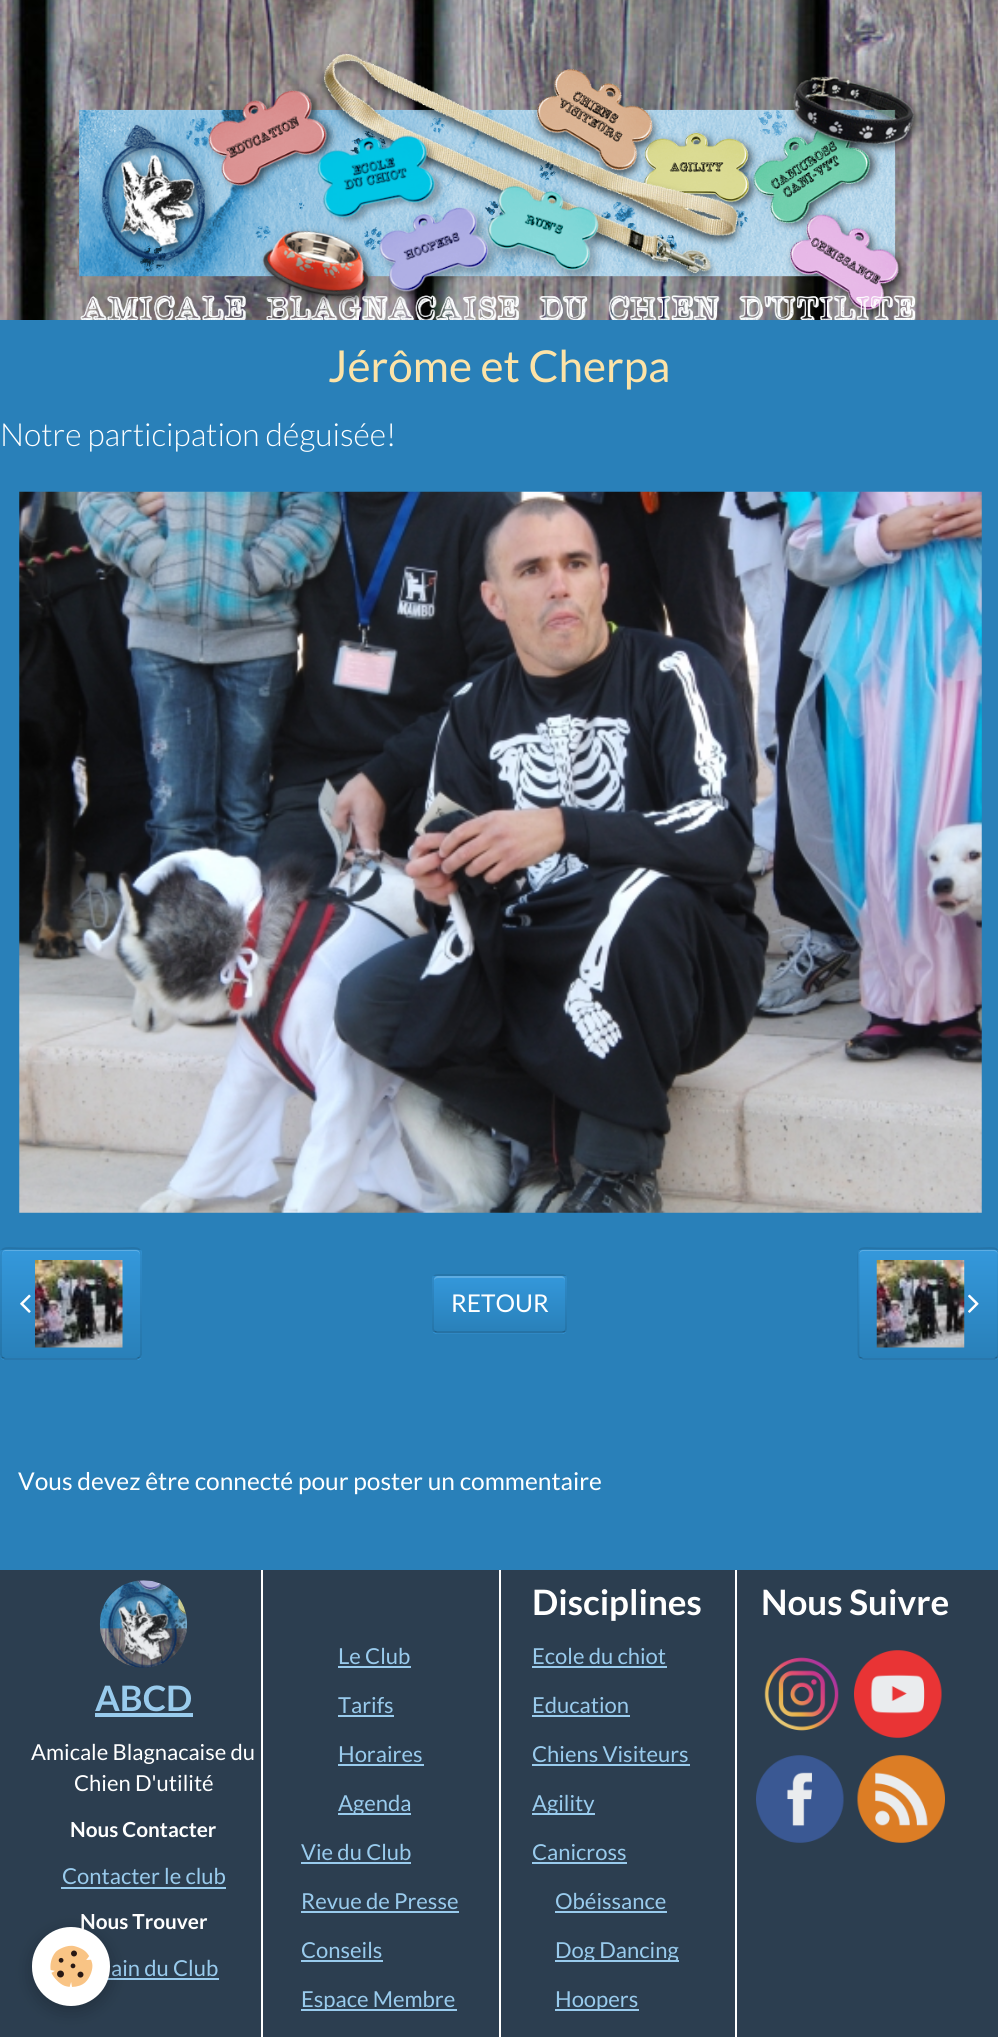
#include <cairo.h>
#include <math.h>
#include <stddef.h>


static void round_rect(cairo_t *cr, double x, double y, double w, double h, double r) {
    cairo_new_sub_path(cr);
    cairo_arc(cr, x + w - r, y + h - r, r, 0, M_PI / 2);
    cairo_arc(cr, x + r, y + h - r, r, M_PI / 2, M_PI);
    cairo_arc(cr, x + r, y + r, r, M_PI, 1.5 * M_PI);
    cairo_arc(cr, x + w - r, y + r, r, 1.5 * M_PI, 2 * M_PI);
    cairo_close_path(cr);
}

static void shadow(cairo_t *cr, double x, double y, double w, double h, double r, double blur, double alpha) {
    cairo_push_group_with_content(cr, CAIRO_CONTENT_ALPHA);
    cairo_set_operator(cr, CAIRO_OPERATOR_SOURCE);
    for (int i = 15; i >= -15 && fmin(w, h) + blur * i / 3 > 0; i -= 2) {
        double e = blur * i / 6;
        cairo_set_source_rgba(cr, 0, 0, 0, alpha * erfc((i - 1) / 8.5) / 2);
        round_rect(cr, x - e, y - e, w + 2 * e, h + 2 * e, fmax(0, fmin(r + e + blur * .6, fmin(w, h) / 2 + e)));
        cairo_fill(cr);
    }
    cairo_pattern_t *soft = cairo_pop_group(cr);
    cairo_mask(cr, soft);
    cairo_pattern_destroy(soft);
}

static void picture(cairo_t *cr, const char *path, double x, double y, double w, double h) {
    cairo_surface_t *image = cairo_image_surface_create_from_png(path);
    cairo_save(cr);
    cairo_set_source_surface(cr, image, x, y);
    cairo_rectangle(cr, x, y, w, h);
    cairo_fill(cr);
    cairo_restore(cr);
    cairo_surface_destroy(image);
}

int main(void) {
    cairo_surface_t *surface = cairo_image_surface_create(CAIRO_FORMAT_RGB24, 998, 2037);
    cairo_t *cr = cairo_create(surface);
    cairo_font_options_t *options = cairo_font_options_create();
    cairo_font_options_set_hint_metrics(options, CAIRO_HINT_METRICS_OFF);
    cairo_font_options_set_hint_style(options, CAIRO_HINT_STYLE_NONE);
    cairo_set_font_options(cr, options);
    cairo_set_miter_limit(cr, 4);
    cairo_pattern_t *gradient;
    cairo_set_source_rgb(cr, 1, 1, 1);
    cairo_paint(cr);
    picture(cr, "img1.png", 0, 0, 998, 320);
    picture(cr, "img2.png", 79, 52, 844, 268);
    cairo_set_source_rgb(cr, 0.173, 0.243, 0.314);
    cairo_rectangle(cr, 0, 1570, 998, 467);
    cairo_fill(cr);
    cairo_set_source_rgb(cr, 1, 1, 1);
    cairo_rectangle(cr, 735, 1563, 2, 474);
    cairo_fill(cr);
    cairo_rectangle(cr, 261, 1563, 2, 474);
    cairo_fill(cr);
    cairo_rectangle(cr, 499, 1563, 2, 474);
    cairo_fill(cr);
    cairo_set_source_rgb(cr, 0.161, 0.502, 0.725);
    cairo_rectangle(cr, 0, 320, 998, 1250);
    cairo_fill(cr);
    cairo_select_font_face(cr, "Lato", CAIRO_FONT_SLANT_NORMAL, CAIRO_FONT_WEIGHT_NORMAL);
    cairo_set_font_size(cr, 44);
    cairo_set_source_rgb(cr, 0.992, 0.89, 0.655);
    cairo_move_to(cr, 328, 382);
    cairo_show_text(cr, "Jérôme et Cherpa");
    cairo_select_font_face(cr, "Lato Light", CAIRO_FONT_SLANT_NORMAL, CAIRO_FONT_WEIGHT_NORMAL);
    cairo_set_font_size(cr, 31.8);
    cairo_set_source_rgb(cr, 1, 1, 1);
    cairo_move_to(cr, 0, 446);
    cairo_show_text(cr, "Notre participation déguisée!");
    picture(cr, "img3.png", 19, 491, 963, 722);
    cairo_save(cr);
    round_rect(cr, 0, 1248, 142, 112, 5);
    cairo_clip(cr);
    gradient = cairo_pattern_create_linear(71, 1250, 71, 1358);
    cairo_pattern_add_color_stop_rgba(gradient, 0, 0.204, 0.596, 0.859, 1);
    cairo_pattern_add_color_stop_rgba(gradient, 1, 0.161, 0.502, 0.725, 1);
    cairo_set_source(cr, gradient);
    cairo_pattern_destroy(gradient);
    cairo_rectangle(cr, 0, 1250, 142, 108);
    cairo_fill(cr);
    gradient = cairo_pattern_create_linear(71, 1358, 71, 1467);
    cairo_pattern_add_color_stop_rgba(gradient, 0, 0.204, 0.596, 0.859, 1);
    cairo_pattern_add_color_stop_rgba(gradient, 1, 0.161, 0.502, 0.725, 1);
    cairo_set_source(cr, gradient);
    cairo_pattern_destroy(gradient);
    cairo_rectangle(cr, 0, 1358, 142, 2);
    cairo_fill(cr);
    cairo_restore(cr);
    cairo_set_source_rgb(cr, 0.365, 0.678, 0.886);
    cairo_new_path(cr);
    cairo_move_to(cr, 5, 1251);
    cairo_line_to(cr, 136, 1251);
    cairo_curve_to(cr, 138, 1251, 140, 1253, 140, 1255);
    cairo_line_to(cr, 140, 1254);
    cairo_curve_to(cr, 140, 1252, 138, 1250, 136, 1250);
    cairo_line_to(cr, 6, 1250);
    cairo_curve_to(cr, 4, 1250, 2, 1252, 2, 1254);
    cairo_line_to(cr, 2, 1255);
    cairo_curve_to(cr, 2, 1253, 3, 1251, 5, 1251);
    cairo_close_path(cr);
    cairo_fill(cr);
    cairo_new_path(cr);
    cairo_move_to(cr, 139.5, 1357.5);
    cairo_line_to(cr, 136.5, 1359);
    cairo_line_to(cr, 5, 1359);
    cairo_line_to(cr, 2, 1357.5);
    cairo_set_source_rgba(cr, 0, 0, 0, 0.25);
    cairo_set_line_width(cr, 1.8);
    cairo_stroke(cr);
    cairo_new_path(cr);
    cairo_move_to(cr, 2, 1357.5);
    cairo_line_to(cr, 1, 1354.5);
    cairo_line_to(cr, 1, 1270);
    cairo_curve_to(cr, 1, 1243, -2, 1248.5, 27, 1248.5);
    cairo_line_to(cr, 114.5, 1248.5);
    cairo_curve_to(cr, 144, 1248.5, 141, 1243, 141, 1270);
    cairo_line_to(cr, 141, 1354.5);
    cairo_line_to(cr, 139.5, 1357.5);
    cairo_set_source_rgba(cr, 0, 0, 0, 0.1);
    cairo_stroke(cr);
    picture(cr, "img4.png", 20, 1294, 11, 19);
    picture(cr, "img5.png", 35, 1260, 88, 88);
    cairo_save(cr);
    round_rect(cr, 432, 1274, 135, 60, 5);
    cairo_clip(cr);
    gradient = cairo_pattern_create_linear(500, 1276, 500, 1332);
    cairo_pattern_add_color_stop_rgba(gradient, 0, 0.204, 0.596, 0.859, 1);
    cairo_pattern_add_color_stop_rgba(gradient, 1, 0.161, 0.502, 0.725, 1);
    cairo_set_source(cr, gradient);
    cairo_pattern_destroy(gradient);
    cairo_rectangle(cr, 432, 1276, 135, 56);
    cairo_fill(cr);
    gradient = cairo_pattern_create_linear(500, 1332, 500, 1388);
    cairo_pattern_add_color_stop_rgba(gradient, 0, 0.204, 0.596, 0.859, 1);
    cairo_pattern_add_color_stop_rgba(gradient, 1, 0.161, 0.502, 0.725, 1);
    cairo_set_source(cr, gradient);
    cairo_pattern_destroy(gradient);
    cairo_rectangle(cr, 432, 1332, 135, 2);
    cairo_fill(cr);
    cairo_restore(cr);
    cairo_set_source_rgb(cr, 0.365, 0.675, 0.886);
    cairo_new_path(cr);
    cairo_move_to(cr, 438, 1278);
    cairo_line_to(cr, 562, 1278);
    cairo_curve_to(cr, 564, 1278, 565, 1279, 565, 1281);
    cairo_line_to(cr, 565, 1280);
    cairo_curve_to(cr, 565, 1278, 563, 1276, 561, 1276);
    cairo_line_to(cr, 438, 1276);
    cairo_curve_to(cr, 436, 1276, 434, 1278, 434, 1280);
    cairo_line_to(cr, 434, 1281);
    cairo_curve_to(cr, 434, 1279, 436, 1278, 438, 1278);
    cairo_close_path(cr);
    cairo_fill(cr);
    cairo_new_path(cr);
    cairo_move_to(cr, 565, 1331.5);
    cairo_line_to(cr, 562, 1332.5);
    cairo_line_to(cr, 437, 1332.5);
    cairo_line_to(cr, 434.5, 1331.5);
    cairo_set_source_rgba(cr, 0, 0, 0, 0.25);
    cairo_stroke(cr);
    cairo_new_path(cr);
    cairo_move_to(cr, 434.5, 1331.5);
    cairo_curve_to(cr, 433.5, 1330.5, 433, 1329.5, 433, 1328);
    cairo_line_to(cr, 433, 1279);
    cairo_curve_to(cr, 433, 1278, 433.5, 1277, 434.5, 1276);
    cairo_curve_to(cr, 435, 1275.5, 436.5, 1275, 437.5, 1275);
    cairo_line_to(cr, 562, 1275);
    cairo_curve_to(cr, 563, 1275, 564, 1275.5, 565, 1276);
    cairo_curve_to(cr, 565.5, 1277, 566, 1278, 566, 1279);
    cairo_line_to(cr, 566, 1328);
    cairo_curve_to(cr, 566, 1329.5, 565.5, 1330.5, 565, 1331.5);
    cairo_set_source_rgba(cr, 0, 0, 0, 0.1);
    cairo_stroke(cr);
    cairo_select_font_face(cr, "Lato", CAIRO_FONT_SLANT_NORMAL, CAIRO_FONT_WEIGHT_NORMAL);
    cairo_set_font_size(cr, 24.5);
    cairo_set_source_rgb(cr, 1, 1, 1);
    cairo_move_to(cr, 451, 1312);
    cairo_show_text(cr, "RETOUR");
    cairo_save(cr);
    round_rect(cr, 858, 1248, 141, 112, 5);
    cairo_clip(cr);
    gradient = cairo_pattern_create_linear(928, 1250, 928, 1358);
    cairo_pattern_add_color_stop_rgba(gradient, 0, 0.204, 0.596, 0.859, 1);
    cairo_pattern_add_color_stop_rgba(gradient, 1, 0.161, 0.502, 0.725, 1);
    cairo_set_source(cr, gradient);
    cairo_pattern_destroy(gradient);
    cairo_rectangle(cr, 858, 1250, 140, 108);
    cairo_fill(cr);
    gradient = cairo_pattern_create_linear(928, 1358, 928, 1467);
    cairo_pattern_add_color_stop_rgba(gradient, 0, 0.204, 0.596, 0.859, 1);
    cairo_pattern_add_color_stop_rgba(gradient, 1, 0.161, 0.502, 0.725, 1);
    cairo_set_source(cr, gradient);
    cairo_pattern_destroy(gradient);
    cairo_rectangle(cr, 858, 1358, 140, 2);
    cairo_fill(cr);
    cairo_restore(cr);
    cairo_set_source_rgb(cr, 0.365, 0.678, 0.886);
    cairo_new_path(cr);
    cairo_move_to(cr, 863, 1251);
    cairo_line_to(cr, 994, 1251);
    cairo_curve_to(cr, 996, 1251, 998, 1253, 998, 1255);
    cairo_line_to(cr, 998, 1254);
    cairo_curve_to(cr, 998, 1252, 996, 1250, 994, 1250);
    cairo_line_to(cr, 863, 1250);
    cairo_curve_to(cr, 861, 1250, 859, 1252, 859, 1254);
    cairo_line_to(cr, 859, 1255);
    cairo_curve_to(cr, 859, 1253, 861, 1251, 863, 1251);
    cairo_close_path(cr);
    cairo_fill(cr);
    cairo_new_path(cr);
    cairo_move_to(cr, 997, 1357.5);
    cairo_line_to(cr, 994.5, 1359);
    cairo_line_to(cr, 884.5, 1359);
    cairo_line_to(cr, 863, 1359);
    cairo_line_to(cr, 859.5, 1357.5);
    cairo_set_source_rgba(cr, 0, 0, 0, 0.25);
    cairo_stroke(cr);
    cairo_new_path(cr);
    cairo_move_to(cr, 859.5, 1357.5);
    cairo_line_to(cr, 858.5, 1354.5);
    cairo_line_to(cr, 858.5, 1270);
    cairo_curve_to(cr, 858.5, 1243, 855.5, 1248.5, 884.5, 1248.5);
    cairo_line_to(cr, 972, 1248.5);
    cairo_curve_to(cr, 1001.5, 1248.5, 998.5, 1243, 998.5, 1270);
    cairo_line_to(cr, 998.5, 1354.5);
    cairo_line_to(cr, 997, 1357.5);
    cairo_set_source_rgba(cr, 0, 0, 0, 0.1);
    cairo_stroke(cr);
    picture(cr, "img6.png", 876, 1260, 89, 88);
    picture(cr, "img7.png", 968, 1294, 11, 19);
    cairo_set_source_rgb(cr, 1, 1, 1);
    cairo_move_to(cr, 18, 1490);
    cairo_show_text(cr, "Vous devez être connecté pour poster un commentaire");
    cairo_select_font_face(cr, "Lato", CAIRO_FONT_SLANT_NORMAL, CAIRO_FONT_WEIGHT_BOLD);
    cairo_set_font_size(cr, 35);
    cairo_move_to(cr, 532, 1615);
    cairo_show_text(cr, "Disciplines");
    cairo_select_font_face(cr, "Lato", CAIRO_FONT_SLANT_NORMAL, CAIRO_FONT_WEIGHT_NORMAL);
    cairo_set_font_size(cr, 22);
    cairo_set_source_rgb(cr, 0.6, 0.796, 0.929);
    cairo_move_to(cr, 532, 1664);
    cairo_show_text(cr, "Ecole du chiot");
    cairo_rectangle(cr, 532, 1666, 135, 2);
    cairo_fill(cr);
    cairo_move_to(cr, 532, 1713);
    cairo_show_text(cr, "Education");
    cairo_rectangle(cr, 532, 1715, 98, 2);
    cairo_fill(cr);
    cairo_move_to(cr, 532, 1762);
    cairo_show_text(cr, "Chiens Visiteurs");
    cairo_rectangle(cr, 532, 1764, 158, 2);
    cairo_fill(cr);
    cairo_rectangle(cr, 532, 1813, 63, 2);
    cairo_fill(cr);
    cairo_move_to(cr, 532, 1811);
    cairo_show_text(cr, "Agility");
    cairo_move_to(cr, 532, 1860);
    cairo_show_text(cr, "Canicross");
    cairo_rectangle(cr, 532, 1862, 95, 2);
    cairo_fill(cr);
    cairo_move_to(cr, 555, 1909);
    cairo_show_text(cr, "Obéissance");
    cairo_rectangle(cr, 555, 1911, 112, 2);
    cairo_fill(cr);
    cairo_rectangle(cr, 555, 1960, 124, 2);
    cairo_fill(cr);
    cairo_move_to(cr, 555, 1958);
    cairo_show_text(cr, "Dog Dancing");
    cairo_rectangle(cr, 555, 2009, 84, 2);
    cairo_fill(cr);
    cairo_move_to(cr, 555, 2007);
    cairo_show_text(cr, "Hoopers");
    cairo_select_font_face(cr, "Lato", CAIRO_FONT_SLANT_NORMAL, CAIRO_FONT_WEIGHT_BOLD);
    cairo_set_font_size(cr, 35);
    cairo_set_source_rgb(cr, 1, 1, 1);
    cairo_move_to(cr, 761, 1615);
    cairo_show_text(cr, "Nous Suivre");
    picture(cr, "img8.png", 764, 1657, 75, 74);
    picture(cr, "img9.png", 854, 1650, 88, 88);
    picture(cr, "img10.png", 756, 1755, 88, 88);
    picture(cr, "img11.png", 857, 1755, 88, 88);
    picture(cr, "img12.png", 99, 1580, 89, 88);
    cairo_set_source_rgb(cr, 0.6, 0.796, 0.929);
    cairo_move_to(cr, 95, 1711);
    cairo_show_text(cr, "ABCD");
    cairo_rectangle(cr, 95, 1713, 98, 4);
    cairo_fill(cr);
    cairo_select_font_face(cr, "Lato", CAIRO_FONT_SLANT_NORMAL, CAIRO_FONT_WEIGHT_NORMAL);
    cairo_set_font_size(cr, 22);
    cairo_set_source_rgb(cr, 1, 1, 1);
    cairo_move_to(cr, 31, 1760);
    cairo_show_text(cr, "Amicale Blagnacaise du");
    cairo_move_to(cr, 74, 1791);
    cairo_show_text(cr, "Chien D'utilité");
    cairo_select_font_face(cr, "Lato", CAIRO_FONT_SLANT_NORMAL, CAIRO_FONT_WEIGHT_BOLD);
    cairo_set_font_size(cr, 20.75);
    cairo_move_to(cr, 70, 1837);
    cairo_show_text(cr, "Nous Contacter");
    cairo_select_font_face(cr, "Lato", CAIRO_FONT_SLANT_NORMAL, CAIRO_FONT_WEIGHT_NORMAL);
    cairo_set_font_size(cr, 22);
    cairo_set_source_rgb(cr, 0.6, 0.796, 0.929);
    cairo_move_to(cr, 62, 1884);
    cairo_show_text(cr, "Contacter le club");
    cairo_rectangle(cr, 61, 1887, 165, 2);
    cairo_fill(cr);
    cairo_select_font_face(cr, "Lato", CAIRO_FONT_SLANT_NORMAL, CAIRO_FONT_WEIGHT_BOLD);
    cairo_set_font_size(cr, 20.75);
    cairo_set_source_rgb(cr, 1, 1, 1);
    cairo_move_to(cr, 80, 1929);
    cairo_show_text(cr, "Nous Trouver");
    cairo_select_font_face(cr, "Lato", CAIRO_FONT_SLANT_NORMAL, CAIRO_FONT_WEIGHT_NORMAL);
    cairo_set_font_size(cr, 22);
    cairo_set_source_rgb(cr, 0.6, 0.796, 0.929);
    cairo_move_to(cr, 111, 1976);
    cairo_show_text(cr, "ain du Club");
    cairo_rectangle(cr, 107, 1978, 112, 2);
    cairo_fill(cr);
    cairo_move_to(cr, 338, 1664);
    cairo_show_text(cr, "Le Club");
    cairo_rectangle(cr, 338, 1666, 73, 2);
    cairo_fill(cr);
    cairo_move_to(cr, 338, 1713);
    cairo_show_text(cr, "Tarifs");
    cairo_rectangle(cr, 338, 1715, 56, 2);
    cairo_fill(cr);
    cairo_move_to(cr, 338, 1762);
    cairo_show_text(cr, "Horaires");
    cairo_rectangle(cr, 338, 1764, 86, 2);
    cairo_fill(cr);
    cairo_rectangle(cr, 338, 1813, 73, 2);
    cairo_fill(cr);
    cairo_move_to(cr, 338, 1811);
    cairo_show_text(cr, "Agenda");
    cairo_move_to(cr, 301, 1860);
    cairo_show_text(cr, "Vie du Club");
    cairo_rectangle(cr, 301, 1862, 110, 2);
    cairo_fill(cr);
    cairo_move_to(cr, 301, 1909);
    cairo_show_text(cr, "Revue de Presse");
    cairo_rectangle(cr, 301, 1911, 158, 2);
    cairo_fill(cr);
    cairo_move_to(cr, 301, 1958);
    cairo_show_text(cr, "Conseils");
    cairo_rectangle(cr, 301, 1960, 82, 2);
    cairo_fill(cr);
    cairo_rectangle(cr, 301, 2009, 156, 2);
    cairo_fill(cr);
    cairo_move_to(cr, 301, 2007);
    cairo_show_text(cr, "Espace Membre");
    cairo_set_source_rgb(cr, 0, 0, 0);
    shadow(cr, 32, 1932, 78, 79, 39, 9, 0.24);
    cairo_set_source_rgb(cr, 1, 1, 1);
    round_rect(cr, 32, 1927, 78, 79, 39);
    cairo_fill(cr);
    picture(cr, "img13.png", 50, 1945, 43, 42);
    cairo_surface_write_to_png(surface, "page.png");
    cairo_font_options_destroy(options);
    cairo_destroy(cr);
    cairo_surface_destroy(surface);
    return 0;
}
